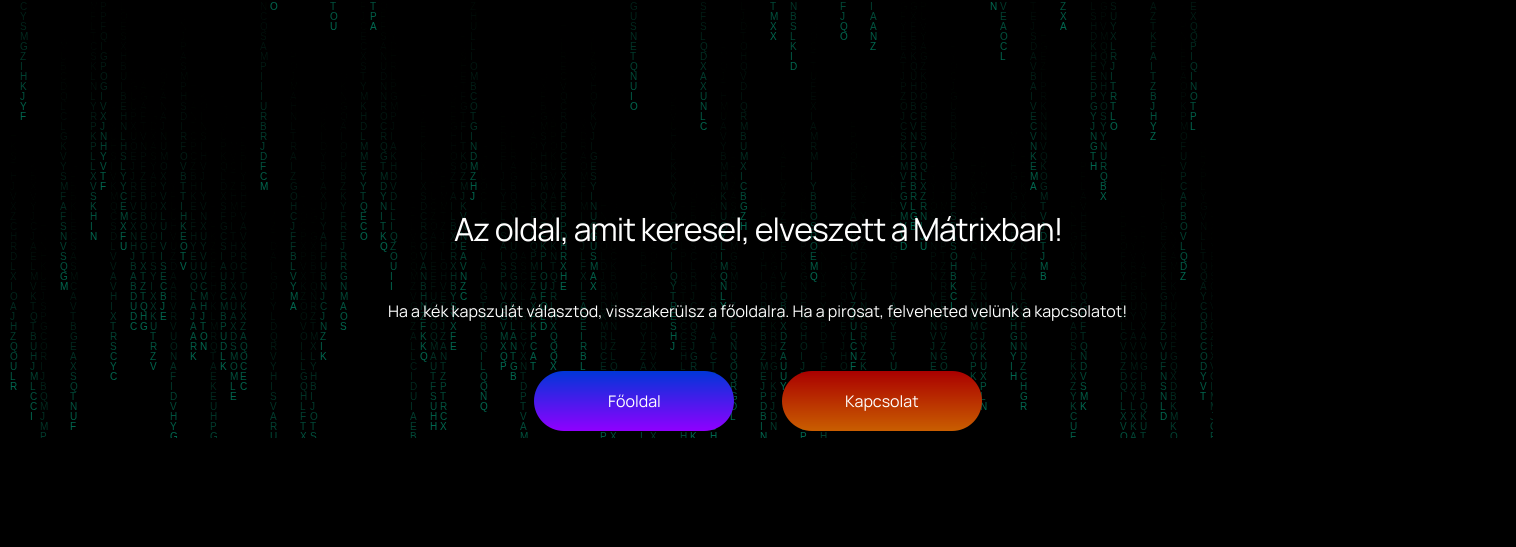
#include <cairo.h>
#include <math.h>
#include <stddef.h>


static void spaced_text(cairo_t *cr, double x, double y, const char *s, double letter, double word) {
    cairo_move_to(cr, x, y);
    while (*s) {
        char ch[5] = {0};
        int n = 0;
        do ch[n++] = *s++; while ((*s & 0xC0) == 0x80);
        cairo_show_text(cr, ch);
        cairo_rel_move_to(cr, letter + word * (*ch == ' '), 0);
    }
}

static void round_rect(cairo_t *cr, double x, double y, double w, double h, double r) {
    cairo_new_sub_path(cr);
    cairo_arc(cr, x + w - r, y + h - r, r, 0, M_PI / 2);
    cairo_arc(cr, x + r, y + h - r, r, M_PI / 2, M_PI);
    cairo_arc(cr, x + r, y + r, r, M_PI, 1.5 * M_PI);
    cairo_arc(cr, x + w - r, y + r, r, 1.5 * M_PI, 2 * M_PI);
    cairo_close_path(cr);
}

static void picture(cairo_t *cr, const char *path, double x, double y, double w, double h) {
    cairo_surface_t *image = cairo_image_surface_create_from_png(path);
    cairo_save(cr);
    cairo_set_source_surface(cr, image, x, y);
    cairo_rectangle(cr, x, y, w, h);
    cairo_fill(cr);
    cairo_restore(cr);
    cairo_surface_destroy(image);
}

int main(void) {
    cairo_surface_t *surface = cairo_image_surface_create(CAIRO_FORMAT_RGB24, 1516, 547);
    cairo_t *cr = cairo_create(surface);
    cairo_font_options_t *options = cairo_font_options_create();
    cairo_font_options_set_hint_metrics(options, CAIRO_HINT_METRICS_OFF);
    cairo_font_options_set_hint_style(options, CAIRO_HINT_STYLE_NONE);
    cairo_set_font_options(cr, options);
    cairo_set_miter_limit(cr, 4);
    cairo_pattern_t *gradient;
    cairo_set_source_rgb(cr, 0, 0, 0);
    cairo_paint(cr);
    picture(cr, "img1.png", 10, 2, 1203, 436);
    cairo_select_font_face(cr, "Manrope", CAIRO_FONT_SLANT_NORMAL, CAIRO_FONT_WEIGHT_NORMAL);
    cairo_set_font_size(cr, 32);
    cairo_set_source_rgb(cr, 1, 1, 1);
    spaced_text(cr, 454, 241, "Az oldal, amit keresel, elveszett a Mátrixban!", -0.95, 0);
    cairo_set_font_size(cr, 16);
    cairo_move_to(cr, 388, 317);
    cairo_show_text(cr, "Ha a kék kapszulát választod, visszakerülsz a főoldalra. Ha a pirosat, felveheted velünk a kapcsolatot!");
    gradient = cairo_pattern_create_linear(634, 371, 634, 431);
    cairo_pattern_add_color_stop_rgba(gradient, 0, 0, 0.212, 0.847, 1);
    cairo_pattern_add_color_stop_rgba(gradient, 1, 0.565, 0, 1, 1);
    cairo_set_source(cr, gradient);
    cairo_pattern_destroy(gradient);
    round_rect(cr, 534, 371, 200, 60, 30);
    cairo_fill(cr);
    cairo_set_source_rgb(cr, 1, 1, 1);
    cairo_move_to(cr, 608, 407);
    cairo_show_text(cr, "Főoldal");
    gradient = cairo_pattern_create_linear(882, 371, 882, 431);
    cairo_pattern_add_color_stop_rgba(gradient, 0, 0.667, 0, 0, 1);
    cairo_pattern_add_color_stop_rgba(gradient, 1, 0.788, 0.369, 0, 1);
    cairo_set_source(cr, gradient);
    cairo_pattern_destroy(gradient);
    round_rect(cr, 782, 371, 200, 60, 30);
    cairo_fill(cr);
    cairo_set_source_rgb(cr, 1, 1, 1);
    cairo_move_to(cr, 845, 407);
    cairo_show_text(cr, "Kapcsolat");
    cairo_surface_write_to_png(surface, "page.png");
    cairo_font_options_destroy(options);
    cairo_destroy(cr);
    cairo_surface_destroy(surface);
    return 0;
}
